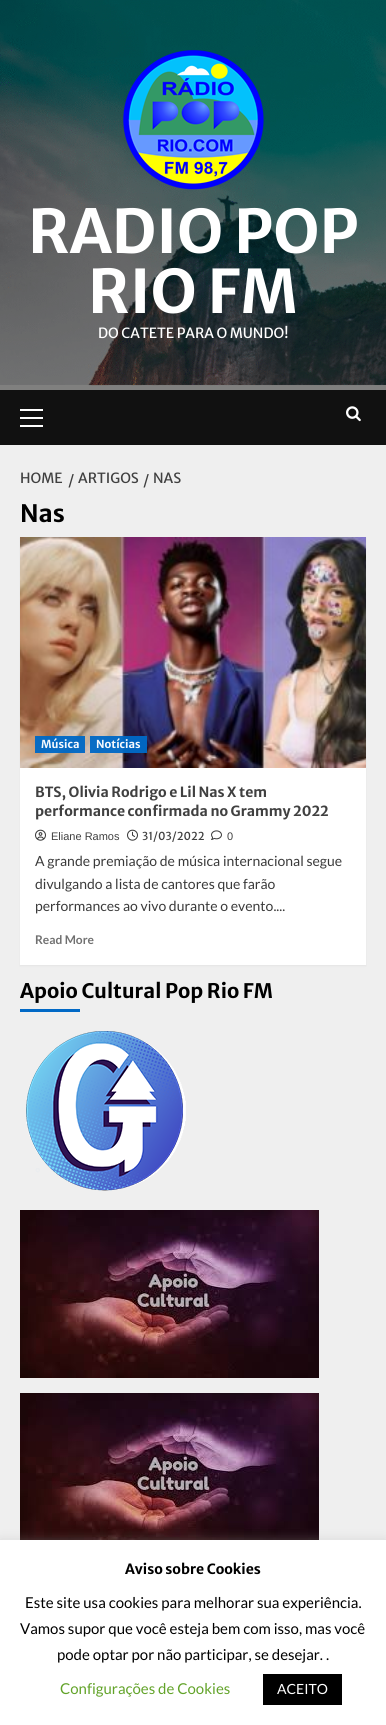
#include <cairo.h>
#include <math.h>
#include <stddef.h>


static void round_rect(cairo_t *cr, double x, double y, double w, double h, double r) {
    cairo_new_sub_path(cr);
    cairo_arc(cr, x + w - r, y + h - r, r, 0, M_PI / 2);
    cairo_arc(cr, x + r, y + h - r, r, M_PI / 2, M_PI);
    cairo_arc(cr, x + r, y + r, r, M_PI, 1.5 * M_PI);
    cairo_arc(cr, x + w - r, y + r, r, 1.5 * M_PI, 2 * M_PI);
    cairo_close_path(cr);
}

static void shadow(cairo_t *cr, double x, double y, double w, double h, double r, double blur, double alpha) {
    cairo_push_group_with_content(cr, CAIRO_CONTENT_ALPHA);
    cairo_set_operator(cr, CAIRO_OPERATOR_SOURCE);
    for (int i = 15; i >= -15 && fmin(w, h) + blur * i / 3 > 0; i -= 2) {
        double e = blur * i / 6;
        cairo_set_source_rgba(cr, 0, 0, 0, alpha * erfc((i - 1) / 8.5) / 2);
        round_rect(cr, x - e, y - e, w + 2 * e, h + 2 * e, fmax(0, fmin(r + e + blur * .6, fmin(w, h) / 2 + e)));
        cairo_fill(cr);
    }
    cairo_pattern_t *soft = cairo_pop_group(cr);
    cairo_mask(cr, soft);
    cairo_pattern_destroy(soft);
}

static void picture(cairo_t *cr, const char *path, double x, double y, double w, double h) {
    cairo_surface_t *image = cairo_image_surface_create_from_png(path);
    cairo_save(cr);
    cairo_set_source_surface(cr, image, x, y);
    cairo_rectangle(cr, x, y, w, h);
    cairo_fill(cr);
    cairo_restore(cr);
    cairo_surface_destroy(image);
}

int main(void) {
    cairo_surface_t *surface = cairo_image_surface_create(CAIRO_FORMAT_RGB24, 386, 1725);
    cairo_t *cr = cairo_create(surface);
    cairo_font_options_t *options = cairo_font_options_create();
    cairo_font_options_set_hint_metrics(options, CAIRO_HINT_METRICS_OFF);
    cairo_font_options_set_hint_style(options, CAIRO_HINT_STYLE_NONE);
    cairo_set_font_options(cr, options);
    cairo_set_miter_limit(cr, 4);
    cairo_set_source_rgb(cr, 0.937, 0.937, 0.937);
    cairo_paint(cr);
    picture(cr, "img1.png", 0, 0, 386, 390);
    picture(cr, "img2.png", 123, 50, 141, 140);
    cairo_select_font_face(cr, "Merriweather Sans", CAIRO_FONT_SLANT_NORMAL, CAIRO_FONT_WEIGHT_BOLD);
    cairo_set_font_size(cr, 60);
    cairo_set_source_rgb(cr, 1, 1, 1);
    cairo_move_to(cr, 28, 253);
    cairo_show_text(cr, "RADIO POP");
    cairo_move_to(cr, 88, 313);
    cairo_show_text(cr, "RIO FM");
    cairo_select_font_face(cr, "Merriweather Sans", CAIRO_FONT_SLANT_NORMAL, CAIRO_FONT_WEIGHT_NORMAL);
    cairo_set_font_size(cr, 14);
    cairo_move_to(cr, 98, 338);
    cairo_show_text(cr, "DO CATETE PARA O MUNDO!");
    cairo_set_source_rgb(cr, 0.067, 0.067, 0.067);
    cairo_rectangle(cr, 0, 390, 386, 55);
    cairo_fill(cr);
    cairo_set_source_rgb(cr, 1, 1, 1);
    cairo_rectangle(cr, 20, 417, 23, 2);
    cairo_fill(cr);
    cairo_rectangle(cr, 20, 409, 23, 2);
    cairo_fill(cr);
    cairo_rectangle(cr, 20, 425, 23, 2);
    cairo_fill(cr);
    picture(cr, "img3.png", 346, 406, 15, 16);
    cairo_set_source_rgb(cr, 0.251, 0.251, 0.251);
    cairo_move_to(cr, 20, 483);
    cairo_show_text(cr, "HOME");
    cairo_move_to(cr, 68, 485);
    cairo_show_text(cr, "/");
    cairo_move_to(cr, 78, 483);
    cairo_show_text(cr, "ARTIGOS");
    cairo_move_to(cr, 143, 485);
    cairo_show_text(cr, "/");
    cairo_move_to(cr, 153, 483);
    cairo_show_text(cr, "NAS");
    cairo_select_font_face(cr, "Merriweather Sans", CAIRO_FONT_SLANT_NORMAL, CAIRO_FONT_WEIGHT_BOLD);
    cairo_set_font_size(cr, 24);
    cairo_set_source_rgb(cr, 0, 0, 0);
    cairo_move_to(cr, 20, 522);
    cairo_show_text(cr, "Nas");
    cairo_set_source_rgb(cr, 0, 0, 0);
    shadow(cr, 20, 538, 346, 428, 0, 1, 0.05);
    cairo_set_source_rgb(cr, 1, 1, 1);
    cairo_rectangle(cr, 20, 768, 346, 197);
    cairo_fill(cr);
    picture(cr, "img4.png", 20, 537, 346, 231);
    cairo_set_source_rgba(cr, 0.004, 0.412, 0.776, 0.96);
    cairo_rectangle(cr, 35, 736, 50, 17);
    cairo_fill(cr);
    cairo_set_font_size(cr, 11);
    cairo_set_source_rgb(cr, 0.961, 0.976, 0.992);
    cairo_move_to(cr, 41, 748);
    cairo_show_text(cr, "Música");
    cairo_set_source_rgba(cr, 0.004, 0.412, 0.776, 0.96);
    cairo_rectangle(cr, 90, 736, 57, 17);
    cairo_fill(cr);
    cairo_set_source_rgb(cr, 0.961, 0.976, 0.992);
    cairo_move_to(cr, 96, 748);
    cairo_show_text(cr, "Notícias");
    cairo_set_font_size(cr, 14);
    cairo_set_source_rgb(cr, 0.251, 0.251, 0.251);
    cairo_move_to(cr, 35, 797);
    cairo_show_text(cr, "BTS, Olivia Rodrigo e Lil Nas X tem");
    cairo_move_to(cr, 35, 816);
    cairo_show_text(cr, "performance confirmada no Grammy 2022");
    picture(cr, "img5.png", 35, 829, 11, 12);
    cairo_select_font_face(cr, "Liberation Sans", CAIRO_FONT_SLANT_NORMAL, CAIRO_FONT_WEIGHT_NORMAL);
    cairo_set_font_size(cr, 11);
    cairo_move_to(cr, 51, 840);
    cairo_show_text(cr, "Eliane Ramos");
    picture(cr, "img6.png", 127, 829, 11, 12);
    cairo_select_font_face(cr, "Merriweather Sans", CAIRO_FONT_SLANT_NORMAL, CAIRO_FONT_WEIGHT_NORMAL);
    cairo_move_to(cr, 142, 840);
    cairo_show_text(cr, "31/03/2022");
    picture(cr, "img7.png", 211, 830, 11, 10);
    cairo_select_font_face(cr, "Liberation Sans", CAIRO_FONT_SLANT_NORMAL, CAIRO_FONT_WEIGHT_NORMAL);
    cairo_move_to(cr, 227, 840);
    cairo_show_text(cr, "0");
    cairo_select_font_face(cr, "Lato", CAIRO_FONT_SLANT_NORMAL, CAIRO_FONT_WEIGHT_NORMAL);
    cairo_set_font_size(cr, 14);
    cairo_set_source_rgb(cr, 0.227, 0.227, 0.227);
    cairo_move_to(cr, 35, 866);
    cairo_show_text(cr, "A grande premiação de música internacional segue");
    cairo_move_to(cr, 35, 889);
    cairo_show_text(cr, "divulgando a lista de cantores que farão");
    cairo_move_to(cr, 35, 911);
    cairo_show_text(cr, "performances ao vivo durante o evento....");
    cairo_select_font_face(cr, "Lato", CAIRO_FONT_SLANT_NORMAL, CAIRO_FONT_WEIGHT_BOLD);
    cairo_set_font_size(cr, 12);
    cairo_set_source_rgb(cr, 0.439, 0.439, 0.439);
    cairo_move_to(cr, 35, 944);
    cairo_show_text(cr, "Read More");
    cairo_select_font_face(cr, "Merriweather Sans", CAIRO_FONT_SLANT_NORMAL, CAIRO_FONT_WEIGHT_BOLD);
    cairo_set_font_size(cr, 20);
    cairo_set_source_rgb(cr, 0, 0, 0);
    cairo_move_to(cr, 20, 998);
    cairo_show_text(cr, "Apoio Cultural Pop Rio FM");
    cairo_set_source_rgb(cr, 0.004, 0.412, 0.776);
    cairo_rectangle(cr, 20, 1009, 60, 3);
    cairo_fill(cr);
    picture(cr, "img8.png", 26, 1031, 160, 160);
    picture(cr, "img9.png", 20, 1210, 299, 168);
    picture(cr, "img10.png", 20, 1393, 299, 147);
    cairo_set_source_rgb(cr, 0.675, 0.671, 0.671);
    shadow(cr, 0, 1539, 386, 185, 0, 5, 0.3);
    cairo_set_source_rgb(cr, 1, 1, 1);
    cairo_rectangle(cr, 0, 1540, 386, 185);
    cairo_fill(cr);
    cairo_set_font_size(cr, 14);
    cairo_set_source_rgb(cr, 0, 0, 0);
    cairo_move_to(cr, 125, 1574);
    cairo_show_text(cr, "Aviso sobre Cookies");
    cairo_select_font_face(cr, "Lato", CAIRO_FONT_SLANT_NORMAL, CAIRO_FONT_WEIGHT_NORMAL);
    cairo_set_font_size(cr, 15);
    cairo_move_to(cr, 25, 1608);
    cairo_show_text(cr, "Este site usa cookies para melhorar sua experiência.");
    cairo_move_to(cr, 20, 1634);
    cairo_show_text(cr, "Vamos supor que você esteja bem com isso, mas você");
    cairo_move_to(cr, 57, 1660);
    cairo_show_text(cr, "pode optar por não participar, se desejar. .");
    cairo_set_source_rgb(cr, 0.384, 0.639, 0.161);
    cairo_move_to(cr, 60, 1694);
    cairo_show_text(cr, "Configurações de Cookies");
    cairo_set_source_rgb(cr, 0, 0, 0);
    cairo_rectangle(cr, 263, 1674, 79, 31);
    cairo_fill(cr);
    cairo_set_font_size(cr, 14);
    cairo_set_source_rgb(cr, 1, 1, 1);
    cairo_move_to(cr, 277, 1694);
    cairo_show_text(cr, "ACEITO");
    cairo_surface_write_to_png(surface, "page.png");
    cairo_font_options_destroy(options);
    cairo_destroy(cr);
    cairo_surface_destroy(surface);
    return 0;
}
